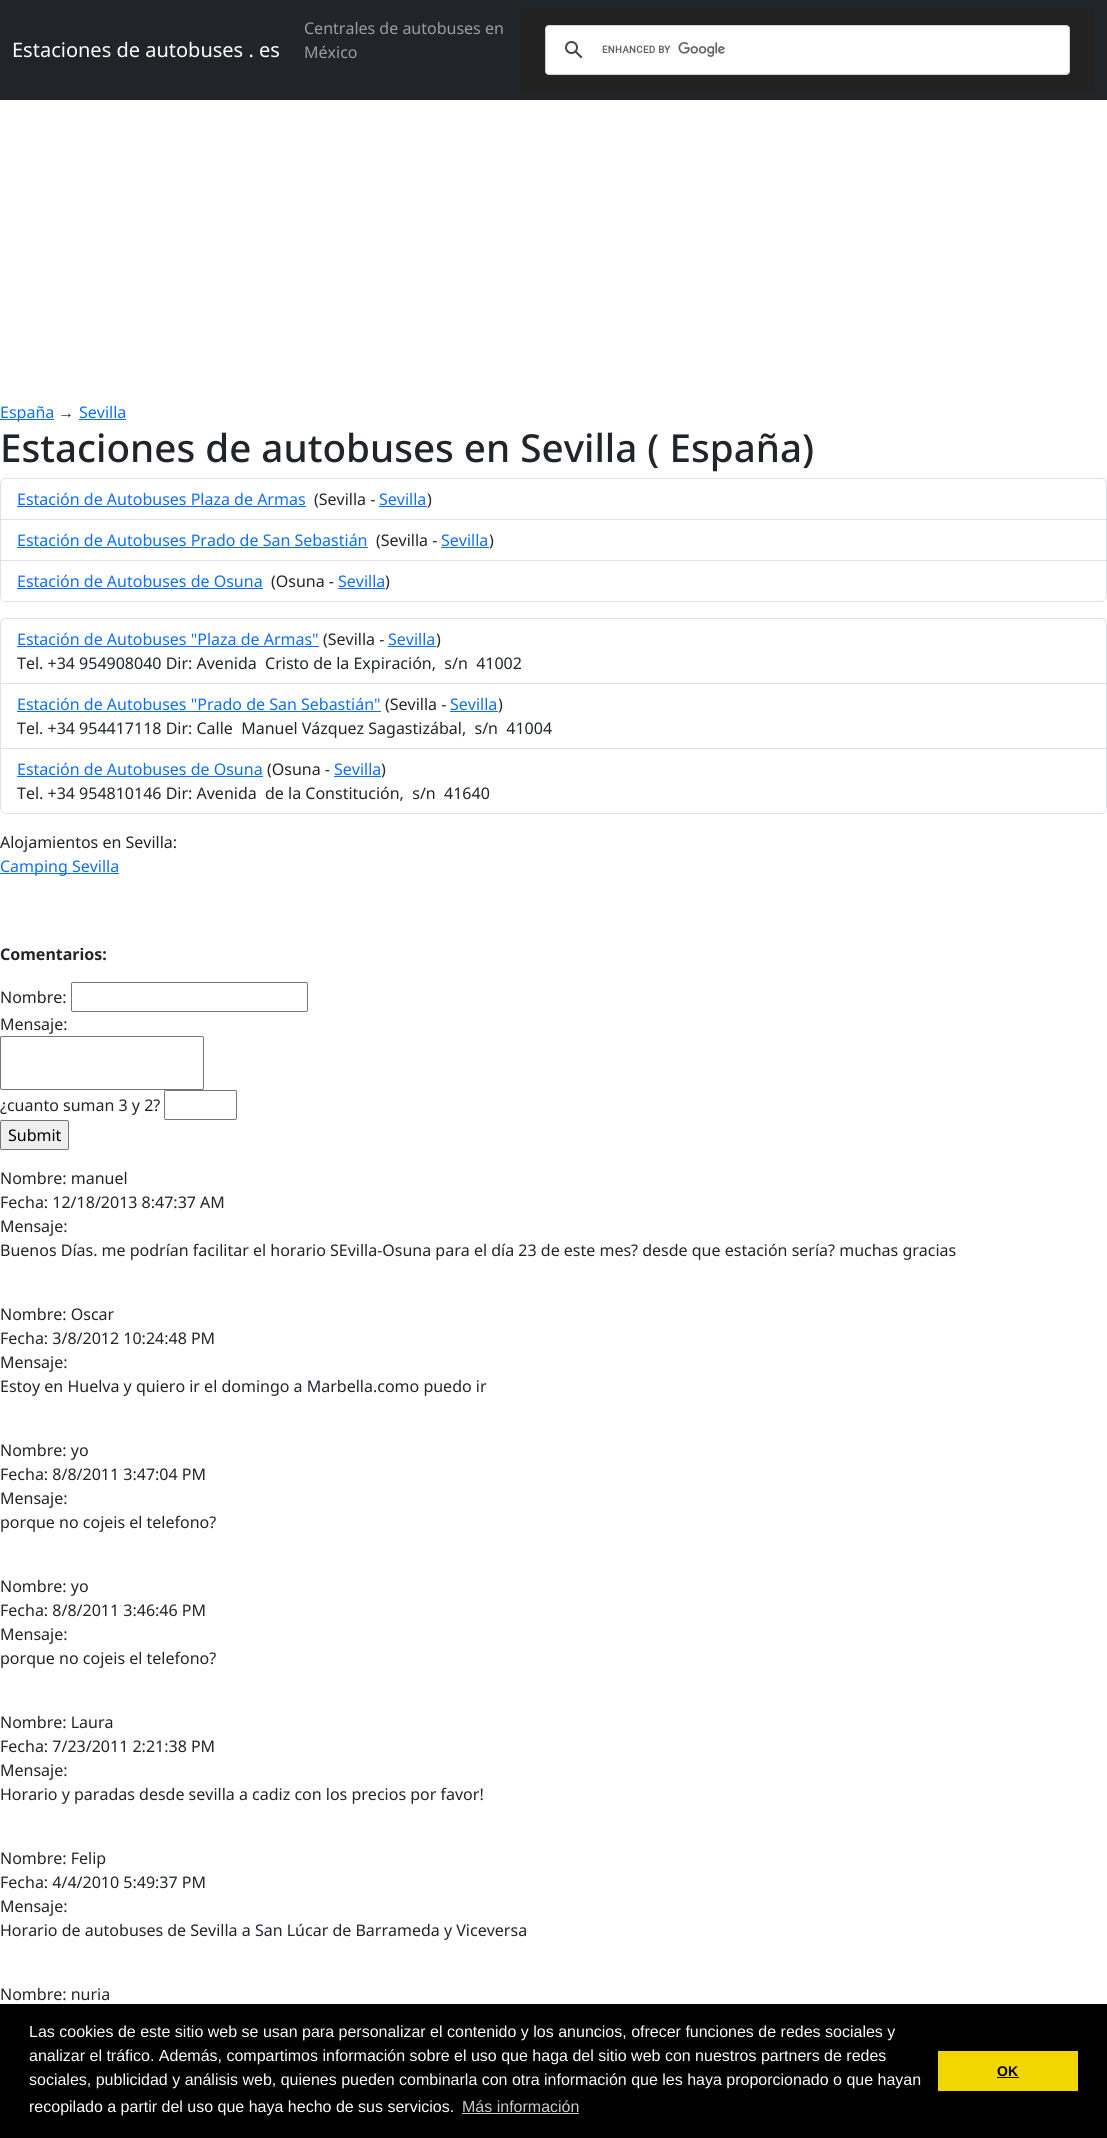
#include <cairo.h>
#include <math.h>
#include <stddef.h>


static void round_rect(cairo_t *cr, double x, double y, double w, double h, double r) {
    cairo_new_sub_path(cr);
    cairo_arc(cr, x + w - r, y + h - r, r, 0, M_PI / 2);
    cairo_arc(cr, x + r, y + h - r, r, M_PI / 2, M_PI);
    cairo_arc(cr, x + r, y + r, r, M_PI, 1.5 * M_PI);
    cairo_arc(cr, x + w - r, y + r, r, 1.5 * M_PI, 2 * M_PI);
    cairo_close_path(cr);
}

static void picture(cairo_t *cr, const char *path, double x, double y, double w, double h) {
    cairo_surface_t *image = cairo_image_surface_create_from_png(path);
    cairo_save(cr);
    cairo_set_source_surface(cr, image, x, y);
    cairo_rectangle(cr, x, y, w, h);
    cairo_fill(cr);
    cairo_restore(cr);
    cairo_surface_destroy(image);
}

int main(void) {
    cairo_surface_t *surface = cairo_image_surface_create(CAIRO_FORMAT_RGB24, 1107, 2138);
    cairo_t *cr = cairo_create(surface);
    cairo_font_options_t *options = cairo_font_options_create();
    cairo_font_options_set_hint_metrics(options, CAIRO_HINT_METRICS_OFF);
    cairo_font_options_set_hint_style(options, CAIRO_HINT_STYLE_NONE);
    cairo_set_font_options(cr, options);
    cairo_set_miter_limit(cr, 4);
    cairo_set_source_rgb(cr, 1, 1, 1);
    cairo_paint(cr);
    cairo_set_source_rgb(cr, 0.129, 0.145, 0.161);
    cairo_rectangle(cr, 0, 0, 1107, 100);
    cairo_fill(cr);
    cairo_select_font_face(cr, "Noto Sans", CAIRO_FONT_SLANT_NORMAL, CAIRO_FONT_WEIGHT_NORMAL);
    cairo_set_font_size(cr, 20);
    cairo_set_source_rgb(cr, 1, 1, 1);
    cairo_move_to(cr, 12, 57);
    cairo_show_text(cr, "Estaciones de autobuses . es");
    cairo_set_font_size(cr, 16);
    cairo_set_source_rgb(cr, 0.608, 0.616, 0.624);
    cairo_move_to(cr, 304, 34);
    cairo_show_text(cr, "Centrales de autobuses en");
    cairo_move_to(cr, 304, 58);
    cairo_show_text(cr, "México");
    cairo_set_source_rgb(cr, 0.133, 0.133, 0.133);
    cairo_rectangle(cr, 520, 8, 575, 84);
    cairo_fill(cr);
    cairo_set_source_rgb(cr, 1, 1, 1);
    round_rect(cr, 545.5, 25.5, 524, 49, 3.5);
    cairo_fill_preserve(cr);
    cairo_set_source_rgb(cr, 0.824, 0.824, 0.824);
    cairo_set_line_width(cr, 1);
    cairo_stroke(cr);
    picture(cr, "img1.png", 565, 41, 18, 18);
    picture(cr, "img2.png", 602, 42, 123, 15);
    cairo_set_source_rgb(cr, 0.051, 0.431, 0.992);
    cairo_rectangle(cr, 0, 419, 54, 1);
    cairo_fill(cr);
    cairo_move_to(cr, 0, 418);
    cairo_show_text(cr, "España");
    cairo_select_font_face(cr, "Liberation Sans", CAIRO_FONT_SLANT_NORMAL, CAIRO_FONT_WEIGHT_NORMAL);
    cairo_set_source_rgb(cr, 0.129, 0.145, 0.161);
    cairo_move_to(cr, 58, 418);
    cairo_show_text(cr, "→");
    cairo_select_font_face(cr, "Noto Sans", CAIRO_FONT_SLANT_NORMAL, CAIRO_FONT_WEIGHT_NORMAL);
    cairo_set_source_rgb(cr, 0.051, 0.431, 0.992);
    cairo_move_to(cr, 79, 418);
    cairo_show_text(cr, "Sevilla");
    cairo_rectangle(cr, 79, 419, 47, 1);
    cairo_fill(cr);
    cairo_select_font_face(cr, "Noto Sans Medium", CAIRO_FONT_SLANT_NORMAL, CAIRO_FONT_WEIGHT_NORMAL);
    cairo_set_font_size(cr, 38.6);
    cairo_set_source_rgb(cr, 0.129, 0.145, 0.161);
    cairo_move_to(cr, 0, 462);
    cairo_show_text(cr, "Estaciones de autobuses en Sevilla ( España)");
    cairo_new_path(cr);
    cairo_move_to(cr, 6, 478.5);
    cairo_line_to(cr, 1101, 478.5);
    cairo_curve_to(cr, 1104, 478.5, 1106.5, 481, 1106.5, 484);
    cairo_line_to(cr, 1106.5, 519.5);
    cairo_line_to(cr, 0.5, 519.5);
    cairo_line_to(cr, 0.5, 484);
    cairo_curve_to(cr, 0.5, 481, 3, 478.5, 6, 478.5);
    cairo_close_path(cr);
    cairo_set_source_rgb(cr, 0.871, 0.886, 0.902);
    cairo_stroke(cr);
    cairo_select_font_face(cr, "Noto Sans", CAIRO_FONT_SLANT_NORMAL, CAIRO_FONT_WEIGHT_NORMAL);
    cairo_set_font_size(cr, 16);
    cairo_set_source_rgb(cr, 0.051, 0.431, 0.992);
    cairo_move_to(cr, 17, 505);
    cairo_show_text(cr, "Estación de Autobuses Plaza de Armas");
    cairo_rectangle(cr, 17, 506, 289, 1);
    cairo_fill(cr);
    cairo_set_source_rgb(cr, 0.129, 0.145, 0.161);
    cairo_move_to(cr, 314, 505);
    cairo_show_text(cr, "(Sevilla -");
    cairo_set_source_rgb(cr, 0.051, 0.431, 0.992);
    cairo_move_to(cr, 379, 505);
    cairo_show_text(cr, "Sevilla");
    cairo_rectangle(cr, 379, 506, 48, 1);
    cairo_fill(cr);
    cairo_set_source_rgb(cr, 0.129, 0.145, 0.161);
    cairo_move_to(cr, 427, 505);
    cairo_show_text(cr, ")");
    cairo_set_source_rgb(cr, 0.871, 0.886, 0.902);
    cairo_rectangle(cr, 1106, 520, 1, 41);
    cairo_fill(cr);
    cairo_rectangle(cr, 0, 560, 1107, 1);
    cairo_fill(cr);
    cairo_rectangle(cr, 0, 520, 1, 41);
    cairo_fill(cr);
    cairo_set_source_rgb(cr, 0.051, 0.431, 0.992);
    cairo_move_to(cr, 17, 546);
    cairo_show_text(cr, "Estación de Autobuses Prado de San Sebastián");
    cairo_rectangle(cr, 17, 547, 351, 1);
    cairo_fill(cr);
    cairo_set_source_rgb(cr, 0.129, 0.145, 0.161);
    cairo_move_to(cr, 376, 546);
    cairo_show_text(cr, "(Sevilla -");
    cairo_set_source_rgb(cr, 0.051, 0.431, 0.992);
    cairo_move_to(cr, 441, 546);
    cairo_show_text(cr, "Sevilla");
    cairo_rectangle(cr, 441, 547, 48, 1);
    cairo_fill(cr);
    cairo_set_source_rgb(cr, 0.129, 0.145, 0.161);
    cairo_move_to(cr, 489, 546);
    cairo_show_text(cr, ")");
    cairo_set_source_rgb(cr, 0.871, 0.886, 0.902);
    cairo_set_fill_rule(cr, CAIRO_FILL_RULE_EVEN_ODD);
    cairo_new_path(cr);
    cairo_move_to(cr, 0, 561);
    cairo_line_to(cr, 1107, 561);
    cairo_line_to(cr, 1107, 596);
    cairo_curve_to(cr, 1107, 599, 1104, 602, 1101, 602);
    cairo_line_to(cr, 6, 602);
    cairo_curve_to(cr, 3, 602, 0, 599, 0, 596);
    cairo_close_path(cr);
    cairo_move_to(cr, 1, 561);
    cairo_line_to(cr, 1106, 561);
    cairo_line_to(cr, 1106, 596);
    cairo_curve_to(cr, 1106, 599, 1104, 601, 1101, 601);
    cairo_line_to(cr, 6, 601);
    cairo_curve_to(cr, 3, 601, 1, 599, 1, 596);
    cairo_close_path(cr);
    cairo_fill(cr);
    cairo_set_source_rgb(cr, 0.051, 0.431, 0.992);
    cairo_move_to(cr, 17, 587);
    cairo_show_text(cr, "Estación de Autobuses de Osuna");
    cairo_rectangle(cr, 17, 588, 246, 1);
    cairo_fill(cr);
    cairo_set_source_rgb(cr, 0.129, 0.145, 0.161);
    cairo_move_to(cr, 271, 587);
    cairo_show_text(cr, "(Osuna -");
    cairo_set_source_rgb(cr, 0.051, 0.431, 0.992);
    cairo_move_to(cr, 338, 587);
    cairo_show_text(cr, "Sevilla");
    cairo_rectangle(cr, 338, 588, 47, 1);
    cairo_fill(cr);
    cairo_set_source_rgb(cr, 0.129, 0.145, 0.161);
    cairo_move_to(cr, 385, 587);
    cairo_show_text(cr, ")");
    cairo_new_path(cr);
    cairo_move_to(cr, 6, 618.5);
    cairo_line_to(cr, 1101, 618.5);
    cairo_curve_to(cr, 1104, 618.5, 1106.5, 621, 1106.5, 624);
    cairo_line_to(cr, 1106.5, 683.5);
    cairo_line_to(cr, 0.5, 683.5);
    cairo_line_to(cr, 0.5, 624);
    cairo_curve_to(cr, 0.5, 621, 3, 618.5, 6, 618.5);
    cairo_close_path(cr);
    cairo_set_source_rgb(cr, 0.871, 0.886, 0.902);
    cairo_stroke(cr);
    cairo_set_source_rgb(cr, 0.051, 0.431, 0.992);
    cairo_move_to(cr, 17, 645);
    cairo_show_text(cr, "Estación de Autobuses \"Plaza de Armas\"");
    cairo_rectangle(cr, 17, 646, 302, 1);
    cairo_fill(cr);
    cairo_set_source_rgb(cr, 0.129, 0.145, 0.161);
    cairo_move_to(cr, 323, 645);
    cairo_show_text(cr, "(Sevilla -");
    cairo_set_source_rgb(cr, 0.051, 0.431, 0.992);
    cairo_move_to(cr, 388, 645);
    cairo_show_text(cr, "Sevilla");
    cairo_rectangle(cr, 388, 646, 48, 1);
    cairo_fill(cr);
    cairo_set_source_rgb(cr, 0.129, 0.145, 0.161);
    cairo_move_to(cr, 436, 645);
    cairo_show_text(cr, ")");
    cairo_move_to(cr, 17, 669);
    cairo_show_text(cr, "Tel. +34 954908040 Dir: Avenida  Cristo de la Expiración,  s/n  41002");
    cairo_set_source_rgb(cr, 0.871, 0.886, 0.902);
    cairo_rectangle(cr, 1106, 684, 1, 65);
    cairo_fill(cr);
    cairo_rectangle(cr, 0, 748, 1107, 1);
    cairo_fill(cr);
    cairo_rectangle(cr, 0, 684, 1, 65);
    cairo_fill(cr);
    cairo_set_source_rgb(cr, 0.051, 0.431, 0.992);
    cairo_move_to(cr, 17, 710);
    cairo_show_text(cr, "Estación de Autobuses \"Prado de San Sebastián\"");
    cairo_rectangle(cr, 17, 711, 364, 1);
    cairo_fill(cr);
    cairo_set_source_rgb(cr, 0.129, 0.145, 0.161);
    cairo_move_to(cr, 385, 710);
    cairo_show_text(cr, "(Sevilla -");
    cairo_set_source_rgb(cr, 0.051, 0.431, 0.992);
    cairo_move_to(cr, 450, 710);
    cairo_show_text(cr, "Sevilla");
    cairo_rectangle(cr, 450, 711, 48, 1);
    cairo_fill(cr);
    cairo_set_source_rgb(cr, 0.129, 0.145, 0.161);
    cairo_move_to(cr, 498, 710);
    cairo_show_text(cr, ")");
    cairo_move_to(cr, 17, 734);
    cairo_show_text(cr, "Tel. +34 954417118 Dir: Calle  Manuel Vázquez Sagastizábal,  s/n  41004");
    cairo_set_source_rgb(cr, 0.871, 0.886, 0.902);
    cairo_new_path(cr);
    cairo_move_to(cr, 0, 749);
    cairo_line_to(cr, 1107, 749);
    cairo_line_to(cr, 1107, 808);
    cairo_curve_to(cr, 1107, 811, 1104, 814, 1101, 814);
    cairo_line_to(cr, 6, 814);
    cairo_curve_to(cr, 3, 814, 0, 811, 0, 808);
    cairo_close_path(cr);
    cairo_move_to(cr, 1, 749);
    cairo_line_to(cr, 1106, 749);
    cairo_line_to(cr, 1106, 808);
    cairo_curve_to(cr, 1106, 811, 1104, 813, 1101, 813);
    cairo_line_to(cr, 6, 813);
    cairo_curve_to(cr, 3, 813, 1, 811, 1, 808);
    cairo_close_path(cr);
    cairo_fill(cr);
    cairo_set_source_rgb(cr, 0.051, 0.431, 0.992);
    cairo_move_to(cr, 17, 775);
    cairo_show_text(cr, "Estación de Autobuses de Osuna");
    cairo_rectangle(cr, 17, 776, 246, 1);
    cairo_fill(cr);
    cairo_set_source_rgb(cr, 0.129, 0.145, 0.161);
    cairo_move_to(cr, 267, 775);
    cairo_show_text(cr, "(Osuna -");
    cairo_set_source_rgb(cr, 0.051, 0.431, 0.992);
    cairo_move_to(cr, 334, 775);
    cairo_show_text(cr, "Sevilla");
    cairo_rectangle(cr, 334, 776, 47, 1);
    cairo_fill(cr);
    cairo_set_source_rgb(cr, 0.129, 0.145, 0.161);
    cairo_move_to(cr, 381, 775);
    cairo_show_text(cr, ")");
    cairo_move_to(cr, 17, 799);
    cairo_show_text(cr, "Tel. +34 954810146 Dir: Avenida  de la Constitución,  s/n  41640");
    cairo_move_to(cr, 0, 848);
    cairo_show_text(cr, "Alojamientos en Sevilla:");
    cairo_set_source_rgb(cr, 0.051, 0.431, 0.992);
    cairo_rectangle(cr, 0, 873, 119, 1);
    cairo_fill(cr);
    cairo_move_to(cr, 0, 872);
    cairo_show_text(cr, "Camping Sevilla");
    cairo_select_font_face(cr, "Noto Sans", CAIRO_FONT_SLANT_NORMAL, CAIRO_FONT_WEIGHT_BOLD);
    cairo_set_source_rgb(cr, 0.129, 0.145, 0.161);
    cairo_move_to(cr, 0, 960);
    cairo_show_text(cr, "Comentarios:");
    cairo_select_font_face(cr, "Noto Sans", CAIRO_FONT_SLANT_NORMAL, CAIRO_FONT_WEIGHT_NORMAL);
    cairo_move_to(cr, 0, 1003);
    cairo_show_text(cr, "Nombre:");
    round_rect(cr, 71.5, 982.5, 236, 29, 1.5);
    cairo_set_source_rgb(cr, 0.463, 0.463, 0.463);
    cairo_stroke(cr);
    cairo_set_source_rgb(cr, 0.129, 0.145, 0.161);
    cairo_move_to(cr, 0, 1030);
    cairo_show_text(cr, "Mensaje:");
    round_rect(cr, 0.5, 1036.5, 203, 53, 1.5);
    cairo_set_source_rgb(cr, 0.463, 0.463, 0.463);
    cairo_stroke(cr);
    cairo_set_source_rgb(cr, 0.129, 0.145, 0.161);
    cairo_move_to(cr, 0, 1111);
    cairo_show_text(cr, "¿cuanto suman 3 y 2?");
    round_rect(cr, 164.5, 1090.5, 72, 29, 1.5);
    cairo_set_source_rgb(cr, 0.463, 0.463, 0.463);
    cairo_stroke(cr);
    cairo_set_source_rgb(cr, 0.937, 0.937, 0.937);
    round_rect(cr, 0.5, 1120.5, 68, 29, 1.5);
    cairo_fill_preserve(cr);
    cairo_set_source_rgb(cr, 0.463, 0.463, 0.463);
    cairo_stroke(cr);
    cairo_set_source_rgb(cr, 0, 0, 0);
    cairo_move_to(cr, 8, 1141);
    cairo_show_text(cr, "Submit");
    cairo_set_source_rgb(cr, 0.129, 0.145, 0.161);
    cairo_move_to(cr, 0, 1184);
    cairo_show_text(cr, "Nombre: manuel");
    cairo_move_to(cr, 0, 1208);
    cairo_show_text(cr, "Fecha: 12/18/2013 8:47:37 AM");
    cairo_move_to(cr, 0, 1232);
    cairo_show_text(cr, "Mensaje:");
    cairo_move_to(cr, 0, 1256);
    cairo_show_text(cr, "Buenos Días. me podrían facilitar el horario SEvilla-Osuna para el día 23 de este mes? desde que estación sería? muchas gracias");
    cairo_move_to(cr, 0, 1320);
    cairo_show_text(cr, "Nombre: Oscar");
    cairo_move_to(cr, 0, 1344);
    cairo_show_text(cr, "Fecha: 3/8/2012 10:24:48 PM");
    cairo_move_to(cr, 0, 1368);
    cairo_show_text(cr, "Mensaje:");
    cairo_move_to(cr, 0, 1392);
    cairo_show_text(cr, "Estoy en Huelva y quiero ir el domingo a Marbella.como puedo ir");
    cairo_move_to(cr, 0, 1456);
    cairo_show_text(cr, "Nombre: yo");
    cairo_move_to(cr, 0, 1480);
    cairo_show_text(cr, "Fecha: 8/8/2011 3:47:04 PM");
    cairo_move_to(cr, 0, 1504);
    cairo_show_text(cr, "Mensaje:");
    cairo_move_to(cr, 0, 1528);
    cairo_show_text(cr, "porque no cojeis el telefono?");
    cairo_move_to(cr, 0, 1592);
    cairo_show_text(cr, "Nombre: yo");
    cairo_move_to(cr, 0, 1616);
    cairo_show_text(cr, "Fecha: 8/8/2011 3:46:46 PM");
    cairo_move_to(cr, 0, 1640);
    cairo_show_text(cr, "Mensaje:");
    cairo_move_to(cr, 0, 1664);
    cairo_show_text(cr, "porque no cojeis el telefono?");
    cairo_move_to(cr, 0, 1728);
    cairo_show_text(cr, "Nombre: Laura");
    cairo_move_to(cr, 0, 1752);
    cairo_show_text(cr, "Fecha: 7/23/2011 2:21:38 PM");
    cairo_move_to(cr, 0, 1776);
    cairo_show_text(cr, "Mensaje:");
    cairo_move_to(cr, 0, 1800);
    cairo_show_text(cr, "Horario y paradas desde sevilla a cadiz con los precios por favor!");
    cairo_move_to(cr, 0, 1864);
    cairo_show_text(cr, "Nombre: Felip");
    cairo_move_to(cr, 0, 1888);
    cairo_show_text(cr, "Fecha: 4/4/2010 5:49:37 PM");
    cairo_move_to(cr, 0, 1912);
    cairo_show_text(cr, "Mensaje:");
    cairo_move_to(cr, 0, 1936);
    cairo_show_text(cr, "Horario de autobuses de Sevilla a San Lúcar de Barrameda y Viceversa");
    cairo_move_to(cr, 0, 2000);
    cairo_show_text(cr, "Nombre: nuria");
    cairo_set_source_rgb(cr, 0, 0, 0);
    cairo_rectangle(cr, 0, 2004, 1107, 134);
    cairo_fill(cr);
    cairo_select_font_face(cr, "Liberation Sans", CAIRO_FONT_SLANT_NORMAL, CAIRO_FONT_WEIGHT_NORMAL);
    cairo_set_source_rgb(cr, 1, 1, 1);
    cairo_move_to(cr, 29, 2037);
    cairo_show_text(cr, "Las cookies de este sitio web se usan para personalizar el contenido y los anuncios, ofrecer funciones de redes sociales y");
    cairo_move_to(cr, 29, 2061);
    cairo_show_text(cr, "analizar el tráfico. Además, compartimos información sobre el uso que haga del sitio web con nuestros partners de redes");
    cairo_move_to(cr, 29, 2085);
    cairo_show_text(cr, "sociales, publicidad y análisis web, quienes pueden combinarla con otra información que les haya proporcionado o que hayan");
    cairo_move_to(cr, 29, 2112);
    cairo_show_text(cr, "recopilado a partir del uso que haya hecho de sus servicios.");
    cairo_set_source_rgb(cr, 0.8, 0.8, 0.8);
    cairo_move_to(cr, 462, 2112);
    cairo_show_text(cr, "Más información");
    cairo_rectangle(cr, 462, 2113, 117, 1);
    cairo_fill(cr);
    cairo_set_source_rgb(cr, 0.945, 0.839, 0);
    cairo_rectangle(cr, 938, 2051, 140, 40);
    cairo_fill(cr);
    cairo_select_font_face(cr, "Liberation Sans", CAIRO_FONT_SLANT_NORMAL, CAIRO_FONT_WEIGHT_BOLD);
    cairo_set_font_size(cr, 14);
    cairo_set_source_rgb(cr, 0, 0, 0);
    cairo_move_to(cr, 997, 2076);
    cairo_show_text(cr, "OK");
    cairo_rectangle(cr, 997, 2077, 22, 1);
    cairo_fill(cr);
    cairo_surface_write_to_png(surface, "page.png");
    cairo_font_options_destroy(options);
    cairo_destroy(cr);
    cairo_surface_destroy(surface);
    return 0;
}
